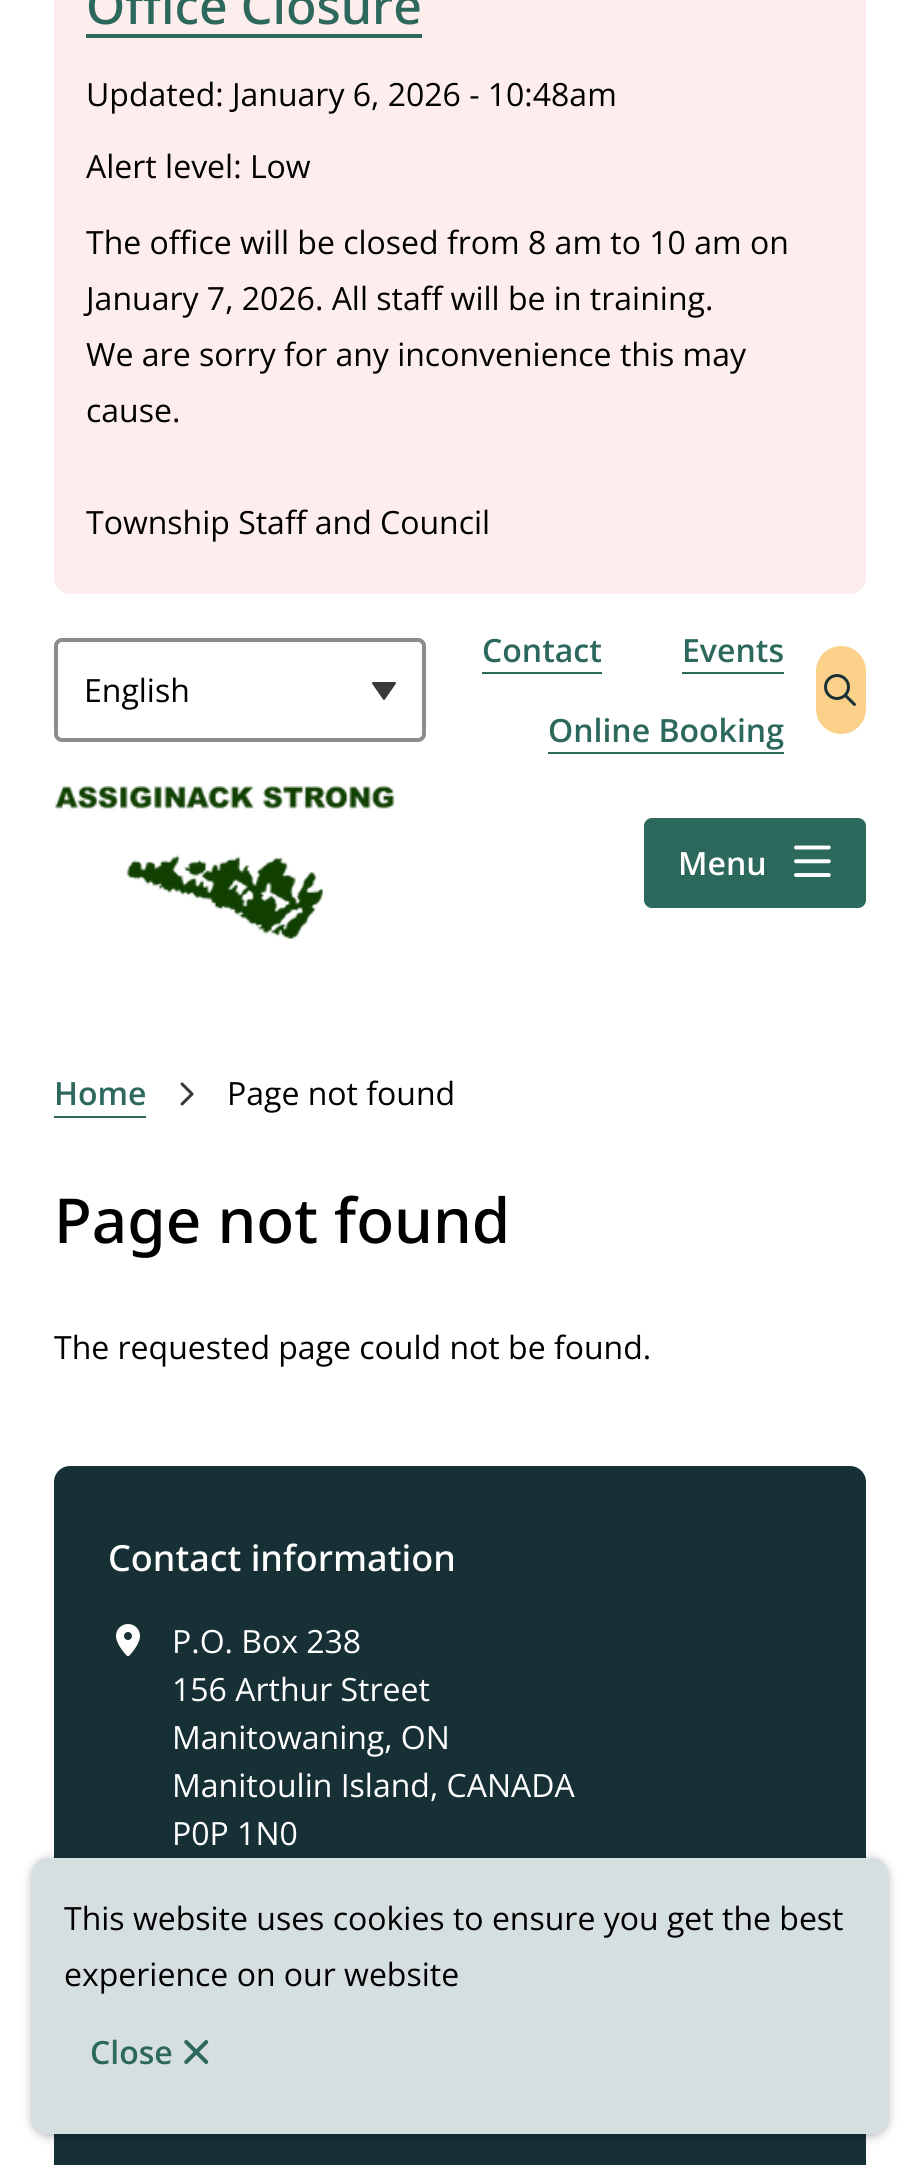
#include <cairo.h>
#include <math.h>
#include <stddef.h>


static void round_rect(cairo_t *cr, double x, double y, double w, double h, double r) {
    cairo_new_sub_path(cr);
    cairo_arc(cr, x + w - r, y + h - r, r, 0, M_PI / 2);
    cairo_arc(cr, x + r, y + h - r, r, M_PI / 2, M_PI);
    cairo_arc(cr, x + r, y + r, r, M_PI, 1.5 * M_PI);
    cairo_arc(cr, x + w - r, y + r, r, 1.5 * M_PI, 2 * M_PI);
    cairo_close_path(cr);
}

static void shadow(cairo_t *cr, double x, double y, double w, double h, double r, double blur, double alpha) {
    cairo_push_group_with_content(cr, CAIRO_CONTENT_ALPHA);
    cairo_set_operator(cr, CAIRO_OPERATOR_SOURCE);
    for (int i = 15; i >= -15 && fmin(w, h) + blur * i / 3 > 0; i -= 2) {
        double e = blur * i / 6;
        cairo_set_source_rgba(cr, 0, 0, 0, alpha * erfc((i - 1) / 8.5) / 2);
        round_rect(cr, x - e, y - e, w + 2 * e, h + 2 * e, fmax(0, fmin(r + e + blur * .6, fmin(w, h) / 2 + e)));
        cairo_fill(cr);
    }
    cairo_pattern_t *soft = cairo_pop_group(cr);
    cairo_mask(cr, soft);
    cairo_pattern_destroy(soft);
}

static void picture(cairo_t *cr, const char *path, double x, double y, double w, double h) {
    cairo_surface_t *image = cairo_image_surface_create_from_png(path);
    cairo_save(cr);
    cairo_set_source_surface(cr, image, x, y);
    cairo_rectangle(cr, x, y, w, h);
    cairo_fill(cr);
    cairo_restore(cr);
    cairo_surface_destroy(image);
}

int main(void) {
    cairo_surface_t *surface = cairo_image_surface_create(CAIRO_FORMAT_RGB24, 920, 2165);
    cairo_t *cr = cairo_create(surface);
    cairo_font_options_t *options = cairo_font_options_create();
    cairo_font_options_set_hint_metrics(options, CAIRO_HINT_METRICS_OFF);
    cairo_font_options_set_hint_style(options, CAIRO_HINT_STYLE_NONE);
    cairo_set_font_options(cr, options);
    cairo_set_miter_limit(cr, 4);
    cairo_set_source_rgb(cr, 1, 1, 1);
    cairo_paint(cr);
    cairo_set_source_rgb(cr, 0.992, 0.929, 0.929);
    round_rect(cr, 54, -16, 812, 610, 16);
    cairo_fill(cr);
    cairo_select_font_face(cr, "Noto Sans Medium", CAIRO_FONT_SLANT_NORMAL, CAIRO_FONT_WEIGHT_NORMAL);
    cairo_set_font_size(cr, 50);
    cairo_set_source_rgb(cr, 0.173, 0.408, 0.357);
    cairo_move_to(cr, 86, 24);
    cairo_show_text(cr, "Office Closure");
    cairo_rectangle(cr, 86, 34, 336, 4);
    cairo_fill(cr);
    cairo_select_font_face(cr, "Open Sans", CAIRO_FONT_SLANT_NORMAL, CAIRO_FONT_WEIGHT_NORMAL);
    cairo_set_font_size(cr, 32);
    cairo_set_source_rgb(cr, 0, 0, 0);
    cairo_move_to(cr, 86, 106);
    cairo_show_text(cr, "Updated: January 6, 2026 - 10:48am");
    cairo_move_to(cr, 86, 178);
    cairo_show_text(cr, "Alert level: Low");
    cairo_move_to(cr, 86, 254);
    cairo_show_text(cr, "The office will be closed from 8 am to 10 am on");
    cairo_move_to(cr, 86, 310);
    cairo_show_text(cr, "January 7, 2026. All staff will be in training.");
    cairo_move_to(cr, 86, 366);
    cairo_show_text(cr, "We are sorry for any inconvenience this may");
    cairo_move_to(cr, 86, 422);
    cairo_show_text(cr, "cause.");
    cairo_move_to(cr, 86, 534);
    cairo_show_text(cr, "Township Staff and Council");
    picture(cr, "img1.png", 372, 682, 24, 18);
    round_rect(cr, 56, 640, 368, 100, 6);
    cairo_set_source_rgb(cr, 0.549, 0.549, 0.549);
    cairo_set_line_width(cr, 4);
    cairo_stroke(cr);
    cairo_set_source_rgb(cr, 0, 0, 0);
    cairo_move_to(cr, 84, 702);
    cairo_show_text(cr, "English");
    cairo_select_font_face(cr, "Open Sans SemiBold", CAIRO_FONT_SLANT_NORMAL, CAIRO_FONT_WEIGHT_NORMAL);
    cairo_set_source_rgb(cr, 0.173, 0.408, 0.357);
    cairo_move_to(cr, 482, 662);
    cairo_show_text(cr, "Contact");
    cairo_rectangle(cr, 482, 672, 120, 2);
    cairo_fill(cr);
    cairo_move_to(cr, 682, 662);
    cairo_show_text(cr, "Events");
    cairo_rectangle(cr, 682, 672, 102, 2);
    cairo_fill(cr);
    cairo_move_to(cr, 548, 742);
    cairo_show_text(cr, "Online Booking");
    cairo_rectangle(cr, 548, 752, 236, 2);
    cairo_fill(cr);
    cairo_set_source_rgb(cr, 0.984, 0.82, 0.537);
    round_rect(cr, 818, 648, 46, 84, 23);
    cairo_fill_preserve(cr);
    cairo_stroke(cr);
    picture(cr, "img2.png", 824, 674, 32, 32);
    picture(cr, "img3.png", 55, 786, 339, 154);
    cairo_set_source_rgb(cr, 0.173, 0.408, 0.357);
    round_rect(cr, 646, 820, 218, 86, 6);
    cairo_fill_preserve(cr);
    cairo_stroke(cr);
    cairo_set_source_rgb(cr, 1, 1, 1);
    cairo_move_to(cr, 678, 875);
    cairo_show_text(cr, "Menu");
    picture(cr, "img4.png", 794, 845, 37, 32);
    cairo_set_source_rgb(cr, 0.173, 0.408, 0.357);
    cairo_move_to(cr, 54, 1105);
    cairo_show_text(cr, "Home");
    cairo_rectangle(cr, 54, 1116, 92, 2);
    cairo_fill(cr);
    picture(cr, "img5.png", 180, 1082, 14, 24);
    cairo_select_font_face(cr, "Open Sans", CAIRO_FONT_SLANT_NORMAL, CAIRO_FONT_WEIGHT_NORMAL);
    cairo_set_source_rgb(cr, 0, 0, 0);
    cairo_move_to(cr, 227, 1105);
    cairo_show_text(cr, "Page not found");
    cairo_select_font_face(cr, "Noto Sans Medium", CAIRO_FONT_SLANT_NORMAL, CAIRO_FONT_WEIGHT_NORMAL);
    cairo_set_font_size(cr, 62);
    cairo_move_to(cr, 54, 1243);
    cairo_show_text(cr, "Page not found");
    cairo_select_font_face(cr, "Open Sans", CAIRO_FONT_SLANT_NORMAL, CAIRO_FONT_WEIGHT_NORMAL);
    cairo_set_font_size(cr, 32);
    cairo_move_to(cr, 54, 1359);
    cairo_show_text(cr, "The requested page could not be found.");
    cairo_set_source_rgb(cr, 0.09, 0.188, 0.212);
    round_rect(cr, 54, 1466, 812, 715, 16);
    cairo_fill(cr);
    cairo_select_font_face(cr, "Noto Sans Medium", CAIRO_FONT_SLANT_NORMAL, CAIRO_FONT_WEIGHT_NORMAL);
    cairo_set_font_size(cr, 36);
    cairo_set_source_rgb(cr, 1, 1, 1);
    cairo_move_to(cr, 108, 1571);
    cairo_show_text(cr, "Contact information");
    picture(cr, "img6.png", 116, 1624, 24, 33);
    cairo_select_font_face(cr, "Open Sans", CAIRO_FONT_SLANT_NORMAL, CAIRO_FONT_WEIGHT_NORMAL);
    cairo_set_font_size(cr, 32);
    cairo_move_to(cr, 172, 1653);
    cairo_show_text(cr, "P.O. Box 238");
    cairo_move_to(cr, 172, 1701);
    cairo_show_text(cr, "156 Arthur Street");
    cairo_move_to(cr, 172, 1749);
    cairo_show_text(cr, "Manitowaning, ON");
    cairo_move_to(cr, 172, 1797);
    cairo_show_text(cr, "Manitoulin Island, CANADA");
    cairo_move_to(cr, 172, 1845);
    cairo_show_text(cr, "P0P 1N0");
    cairo_set_source_rgb(cr, 0, 0, 0);
    shadow(cr, 32, 1860, 856, 276, 16, 5, 0.3);
    cairo_set_source_rgb(cr, 0.839, 0.875, 0.878);
    round_rect(cr, 32, 1858, 856, 276, 16);
    cairo_fill(cr);
    cairo_set_source_rgb(cr, 0, 0, 0);
    cairo_move_to(cr, 64, 1930);
    cairo_show_text(cr, "This website uses cookies to ensure you get the best");
    cairo_move_to(cr, 64, 1986);
    cairo_show_text(cr, "experience on our website");
    cairo_select_font_face(cr, "Open Sans SemiBold", CAIRO_FONT_SLANT_NORMAL, CAIRO_FONT_WEIGHT_NORMAL);
    cairo_set_source_rgb(cr, 0.173, 0.408, 0.357);
    cairo_move_to(cr, 90, 2064);
    cairo_show_text(cr, "Close");
    picture(cr, "img7.png", 184, 2040, 25, 24);
    cairo_surface_write_to_png(surface, "page.png");
    cairo_font_options_destroy(options);
    cairo_destroy(cr);
    cairo_surface_destroy(surface);
    return 0;
}
